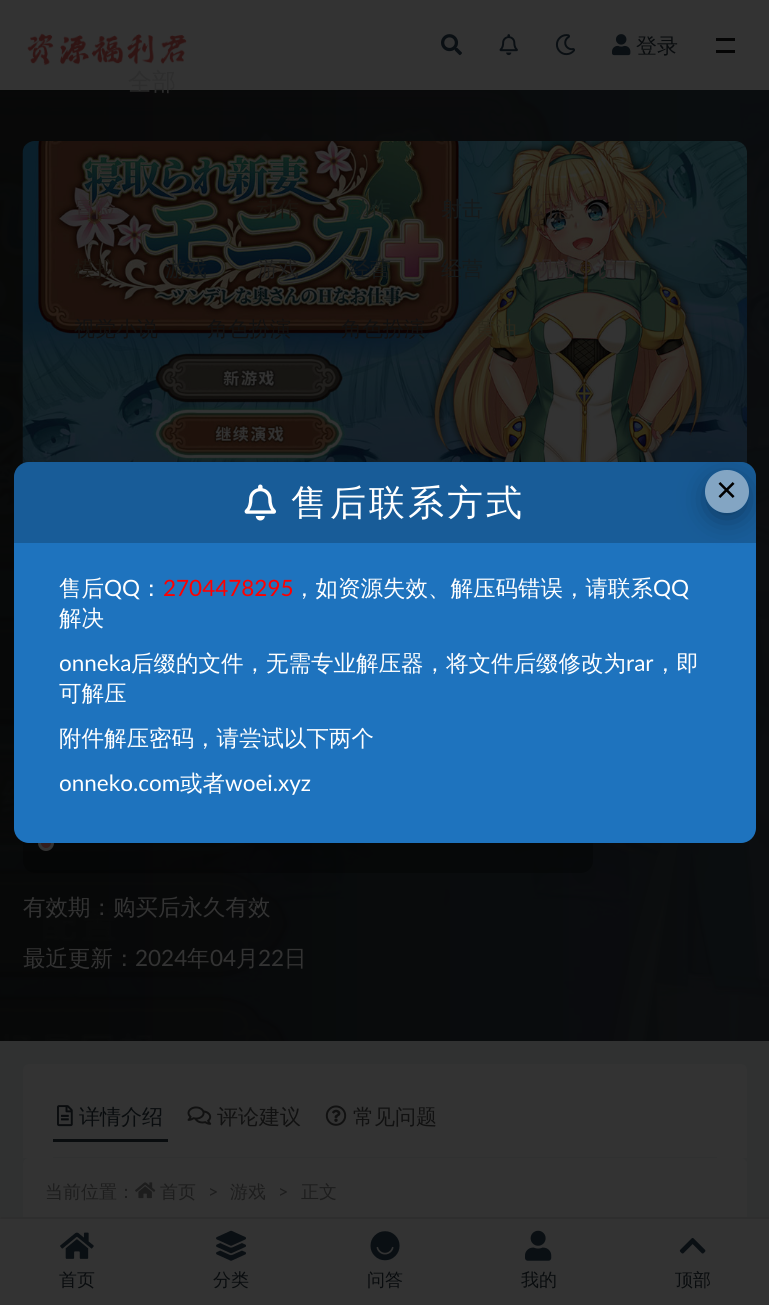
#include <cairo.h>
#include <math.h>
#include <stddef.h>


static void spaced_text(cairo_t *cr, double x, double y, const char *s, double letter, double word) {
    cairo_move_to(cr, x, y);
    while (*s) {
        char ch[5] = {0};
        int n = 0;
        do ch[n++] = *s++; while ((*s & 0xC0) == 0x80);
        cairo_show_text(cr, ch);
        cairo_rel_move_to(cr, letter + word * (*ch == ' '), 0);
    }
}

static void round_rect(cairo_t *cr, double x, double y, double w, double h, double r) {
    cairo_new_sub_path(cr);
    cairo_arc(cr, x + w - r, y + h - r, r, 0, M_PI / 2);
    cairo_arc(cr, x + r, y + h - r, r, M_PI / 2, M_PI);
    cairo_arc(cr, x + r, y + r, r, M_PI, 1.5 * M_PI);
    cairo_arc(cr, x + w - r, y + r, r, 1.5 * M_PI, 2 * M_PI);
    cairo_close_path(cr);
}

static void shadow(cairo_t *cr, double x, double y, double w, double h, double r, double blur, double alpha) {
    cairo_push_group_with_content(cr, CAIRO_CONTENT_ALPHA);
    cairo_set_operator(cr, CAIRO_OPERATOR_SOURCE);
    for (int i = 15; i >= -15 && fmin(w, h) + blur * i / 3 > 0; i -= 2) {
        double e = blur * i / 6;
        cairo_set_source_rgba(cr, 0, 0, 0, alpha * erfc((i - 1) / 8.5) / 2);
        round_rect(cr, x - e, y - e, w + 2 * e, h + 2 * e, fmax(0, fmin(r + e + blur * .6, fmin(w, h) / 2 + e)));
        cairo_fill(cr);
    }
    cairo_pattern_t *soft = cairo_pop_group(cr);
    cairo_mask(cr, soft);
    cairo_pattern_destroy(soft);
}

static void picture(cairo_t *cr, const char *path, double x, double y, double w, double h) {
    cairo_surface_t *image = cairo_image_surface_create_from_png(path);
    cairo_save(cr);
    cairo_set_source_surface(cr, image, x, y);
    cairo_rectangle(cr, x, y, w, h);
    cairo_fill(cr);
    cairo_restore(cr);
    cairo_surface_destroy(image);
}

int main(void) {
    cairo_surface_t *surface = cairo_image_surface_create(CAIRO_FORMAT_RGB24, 769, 1305);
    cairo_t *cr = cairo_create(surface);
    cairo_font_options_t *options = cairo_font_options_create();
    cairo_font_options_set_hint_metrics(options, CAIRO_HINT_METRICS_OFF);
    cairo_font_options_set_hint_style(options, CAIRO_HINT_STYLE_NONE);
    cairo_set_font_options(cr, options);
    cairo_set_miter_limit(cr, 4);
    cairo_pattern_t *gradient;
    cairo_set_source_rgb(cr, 0.188, 0.192, 0.192);
    cairo_paint(cr);
    cairo_set_source_rgb(cr, 0.2, 0.2, 0.2);
    cairo_rectangle(cr, 0, 0, 769, 90);
    cairo_fill(cr);
    picture(cr, "img1.png", 27, 33, 160, 33);
    picture(cr, "img2.png", 441, 34, 21, 22);
    picture(cr, "img3.png", 499, 34, 19, 22);
    picture(cr, "img4.png", 555, 34, 20, 22);
    picture(cr, "img5.png", 612, 34, 19, 22);
    cairo_select_font_face(cr, "WenQuanYi Zen Hei Medium", CAIRO_FONT_SLANT_NORMAL, CAIRO_FONT_WEIGHT_NORMAL);
    cairo_set_font_size(cr, 21);
    cairo_set_source_rgb(cr, 0.039, 0.047, 0.055);
    cairo_move_to(cr, 636, 53);
    cairo_show_text(cr, "登录");
    cairo_set_source_rgb(cr, 0.02, 0.02, 0.02);
    cairo_rectangle(cr, 716, 38, 19, 3);
    cairo_fill(cr);
    cairo_rectangle(cr, 716, 50, 19, 3);
    cairo_fill(cr);
    picture(cr, "img6.png", 0, 90, 769, 951);
    gradient = cairo_pattern_create_linear(0, 566, 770, 566);
    cairo_pattern_add_color_stop_rgba(gradient, 0, 0.024, 0.027, 0.027, 0.95);
    cairo_pattern_add_color_stop_rgba(gradient, 1, 0.039, 0.047, 0.055, 0.95);
    cairo_set_source(cr, gradient);
    cairo_pattern_destroy(gradient);
    cairo_rectangle(cr, 0, 90, 769, 951);
    cairo_fill(cr);
    picture(cr, "img7.png", 22, 141, 725, 323);
    cairo_set_source_rgba(cr, 0, 0, 0, 0.3);
    round_rect(cr, 23, 756, 570, 117, 12);
    cairo_fill(cr);
    cairo_set_source_rgb(cr, 0.2, 0.114, 0.114);
    round_rect(cr, 39.5, 835.5, 13, 14, 6.5);
    cairo_fill_preserve(cr);
    cairo_set_source_rgb(cr, 0.2, 0.2, 0.2);
    cairo_set_line_width(cr, 3);
    cairo_stroke(cr);
    cairo_set_font_size(cr, 22.5);
    cairo_move_to(cr, 23, 915);
    cairo_show_text(cr, "有效期：购买后永久有效");
    cairo_move_to(cr, 23, 966);
    cairo_show_text(cr, "最近更新：");
    cairo_select_font_face(cr, "Lato", CAIRO_FONT_SLANT_NORMAL, CAIRO_FONT_WEIGHT_NORMAL);
    cairo_move_to(cr, 135, 966);
    cairo_show_text(cr, "2024");
    cairo_select_font_face(cr, "WenQuanYi Zen Hei Medium", CAIRO_FONT_SLANT_NORMAL, CAIRO_FONT_WEIGHT_NORMAL);
    cairo_move_to(cr, 187, 966);
    cairo_show_text(cr, "年");
    cairo_select_font_face(cr, "Lato", CAIRO_FONT_SLANT_NORMAL, CAIRO_FONT_WEIGHT_NORMAL);
    cairo_move_to(cr, 210, 966);
    cairo_show_text(cr, "04");
    cairo_select_font_face(cr, "WenQuanYi Zen Hei Medium", CAIRO_FONT_SLANT_NORMAL, CAIRO_FONT_WEIGHT_NORMAL);
    cairo_move_to(cr, 236, 966);
    cairo_show_text(cr, "月");
    cairo_select_font_face(cr, "Lato", CAIRO_FONT_SLANT_NORMAL, CAIRO_FONT_WEIGHT_NORMAL);
    cairo_move_to(cr, 258, 966);
    cairo_show_text(cr, "22");
    cairo_select_font_face(cr, "WenQuanYi Zen Hei Medium", CAIRO_FONT_SLANT_NORMAL, CAIRO_FONT_WEIGHT_NORMAL);
    cairo_move_to(cr, 284, 966);
    cairo_show_text(cr, "日");
    cairo_new_path(cr);
    cairo_move_to(cr, 29, 1064);
    cairo_line_to(cr, 741, 1064);
    cairo_curve_to(cr, 744.5, 1064, 747, 1066.5, 747, 1070);
    cairo_line_to(cr, 747, 1158);
    cairo_line_to(cr, 23, 1158);
    cairo_line_to(cr, 23, 1070);
    cairo_curve_to(cr, 23, 1066.5, 25.5, 1064, 29, 1064);
    cairo_close_path(cr);
    cairo_fill(cr);
    cairo_set_source_rgb(cr, 0.188, 0.192, 0.192);
    cairo_rectangle(cr, 53, 1157, 664, 1);
    cairo_fill(cr);
    cairo_set_source_rgb(cr, 0.039, 0.047, 0.055);
    cairo_rectangle(cr, 53, 1139, 115, 3);
    cairo_fill(cr);
    picture(cr, "img8.png", 57, 1105, 16, 22);
    cairo_set_font_size(cr, 21);
    cairo_move_to(cr, 79, 1124);
    cairo_show_text(cr, "详情介绍");
    picture(cr, "img9.png", 187, 1106, 25, 19);
    cairo_set_source_rgb(cr, 0.067, 0.067, 0.067);
    cairo_move_to(cr, 217, 1124);
    cairo_show_text(cr, "评论建议");
    picture(cr, "img10.png", 325, 1105, 22, 21);
    cairo_move_to(cr, 353, 1124);
    cairo_show_text(cr, "常见问题");
    cairo_set_source_rgb(cr, 0.2, 0.2, 0.2);
    round_rect(cr, 23, 1158, 724, 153, 6);
    cairo_fill(cr);
    cairo_set_font_size(cr, 18);
    cairo_set_source_rgb(cr, 0.114, 0.114, 0.114);
    cairo_move_to(cr, 45, 1198);
    cairo_show_text(cr, "当前位置：");
    picture(cr, "img11.png", 135, 1182, 21, 17);
    cairo_move_to(cr, 160, 1198);
    cairo_show_text(cr, "首页");
    cairo_select_font_face(cr, "Lato", CAIRO_FONT_SLANT_NORMAL, CAIRO_FONT_WEIGHT_NORMAL);
    cairo_move_to(cr, 208, 1198);
    cairo_show_text(cr, ">");
    cairo_select_font_face(cr, "WenQuanYi Zen Hei Medium", CAIRO_FONT_SLANT_NORMAL, CAIRO_FONT_WEIGHT_NORMAL);
    cairo_move_to(cr, 230, 1198);
    cairo_show_text(cr, "游戏");
    cairo_select_font_face(cr, "Lato", CAIRO_FONT_SLANT_NORMAL, CAIRO_FONT_WEIGHT_NORMAL);
    cairo_move_to(cr, 278, 1198);
    cairo_show_text(cr, ">");
    cairo_select_font_face(cr, "WenQuanYi Zen Hei Medium", CAIRO_FONT_SLANT_NORMAL, CAIRO_FONT_WEIGHT_NORMAL);
    cairo_move_to(cr, 301, 1198);
    cairo_show_text(cr, "正文");
    cairo_set_font_size(cr, 24);
    cairo_set_source_rgb(cr, 0.176, 0.176, 0.176);
    cairo_move_to(cr, 128, 90);
    cairo_show_text(cr, "全部");
    cairo_set_font_size(cr, 21);
    cairo_set_source_rgb(cr, 0.176, 0.149, 0.153);
    cairo_move_to(cr, 74, 216);
    cairo_show_text(cr, "冒险");
    cairo_set_source_rgb(cr, 0.106, 0.086, 0.063);
    cairo_move_to(cr, 257, 216);
    cairo_show_text(cr, "动作");
    cairo_set_source_rgb(cr, 0.086, 0.133, 0.114);
    cairo_move_to(cr, 349, 216);
    cairo_show_text(cr, "动作");
    cairo_set_source_rgb(cr, 0.086, 0.102, 0.106);
    cairo_move_to(cr, 441, 216);
    cairo_show_text(cr, "射击");
    cairo_set_source_rgb(cr, 0.161, 0.133, 0.114);
    cairo_move_to(cr, 533, 216);
    cairo_show_text(cr, "幻想");
    cairo_move_to(cr, 625, 216);
    cairo_show_text(cr, "模拟");
    cairo_set_source_rgb(cr, 0.106, 0.086, 0.063);
    cairo_move_to(cr, 74, 276);
    cairo_show_text(cr, "模拟");
    cairo_set_source_rgb(cr, 0.086, 0.102, 0.106);
    cairo_move_to(cr, 165, 276);
    cairo_show_text(cr, "游戏");
    cairo_set_source_rgb(cr, 0.114, 0.114, 0.114);
    cairo_move_to(cr, 257, 276);
    cairo_show_text(cr, "游戏");
    cairo_set_source_rgb(cr, 0.086, 0.102, 0.106);
    cairo_move_to(cr, 349, 276);
    cairo_show_text(cr, "经营");
    cairo_move_to(cr, 441, 276);
    cairo_show_text(cr, "经营");
    cairo_set_source_rgb(cr, 0.176, 0.149, 0.153);
    cairo_move_to(cr, 533, 276);
    cairo_show_text(cr, "视觉小说");
    cairo_set_source_rgb(cr, 0.067, 0.067, 0.067);
    cairo_move_to(cr, 74, 336);
    cairo_show_text(cr, "视觉小说");
    cairo_move_to(cr, 207, 336);
    cairo_show_text(cr, "角色扮演");
    cairo_move_to(cr, 341, 336);
    cairo_show_text(cr, "角色扮演");
    cairo_set_source_rgb(cr, 0.169, 0.157, 0.11);
    cairo_move_to(cr, 475, 336);
    cairo_show_text(cr, "黄油");
    cairo_set_source_rgb(cr, 0.118, 0.451, 0.745);
    round_rect(cr, 14, 462, 742, 381, 15);
    cairo_fill(cr);
    cairo_set_source_rgba(cr, 0, 0, 0, 0.2);
    cairo_new_path(cr);
    cairo_move_to(cr, 29, 462);
    cairo_line_to(cr, 741, 462);
    cairo_curve_to(cr, 749.5, 462, 756, 468.5, 756, 477);
    cairo_line_to(cr, 756, 543);
    cairo_line_to(cr, 14, 543);
    cairo_line_to(cr, 14, 477);
    cairo_curve_to(cr, 14, 468.5, 20.5, 462, 29, 462);
    cairo_close_path(cr);
    cairo_fill(cr);
    picture(cr, "img12.png", 244, 484, 33, 37);
    cairo_set_font_size(cr, 36);
    cairo_set_source_rgb(cr, 1, 1, 1);
    spaced_text(cr, 291, 515, "售后联系方式", 3, 0);
    cairo_set_font_size(cr, 22.5);
    cairo_move_to(cr, 59, 596);
    cairo_show_text(cr, "售后");
    cairo_select_font_face(cr, "Lato", CAIRO_FONT_SLANT_NORMAL, CAIRO_FONT_WEIGHT_NORMAL);
    cairo_move_to(cr, 104, 596);
    cairo_show_text(cr, "QQ");
    cairo_select_font_face(cr, "WenQuanYi Zen Hei Medium", CAIRO_FONT_SLANT_NORMAL, CAIRO_FONT_WEIGHT_NORMAL);
    cairo_move_to(cr, 140, 596);
    cairo_show_text(cr, "：");
    cairo_select_font_face(cr, "Lato", CAIRO_FONT_SLANT_NORMAL, CAIRO_FONT_WEIGHT_NORMAL);
    cairo_set_source_rgb(cr, 1, 0, 0);
    cairo_move_to(cr, 163, 596);
    cairo_show_text(cr, "2704478295");
    cairo_select_font_face(cr, "WenQuanYi Zen Hei Medium", CAIRO_FONT_SLANT_NORMAL, CAIRO_FONT_WEIGHT_NORMAL);
    cairo_set_source_rgb(cr, 1, 1, 1);
    cairo_move_to(cr, 293, 596);
    cairo_show_text(cr, "，如资源失效、解压码错误，请联系");
    cairo_select_font_face(cr, "Lato", CAIRO_FONT_SLANT_NORMAL, CAIRO_FONT_WEIGHT_NORMAL);
    cairo_move_to(cr, 653, 596);
    cairo_show_text(cr, "QQ");
    cairo_select_font_face(cr, "WenQuanYi Zen Hei Medium", CAIRO_FONT_SLANT_NORMAL, CAIRO_FONT_WEIGHT_NORMAL);
    cairo_move_to(cr, 59, 626);
    cairo_show_text(cr, "解决");
    cairo_select_font_face(cr, "Lato", CAIRO_FONT_SLANT_NORMAL, CAIRO_FONT_WEIGHT_NORMAL);
    cairo_move_to(cr, 59, 671);
    cairo_show_text(cr, "onneka");
    cairo_select_font_face(cr, "WenQuanYi Zen Hei Medium", CAIRO_FONT_SLANT_NORMAL, CAIRO_FONT_WEIGHT_NORMAL);
    cairo_move_to(cr, 131, 671);
    cairo_show_text(cr, "后缀的文件，无需专业解压器，将文件后缀修改为");
    cairo_select_font_face(cr, "Lato", CAIRO_FONT_SLANT_NORMAL, CAIRO_FONT_WEIGHT_NORMAL);
    cairo_move_to(cr, 626, 671);
    cairo_show_text(cr, "rar");
    cairo_select_font_face(cr, "WenQuanYi Zen Hei Medium", CAIRO_FONT_SLANT_NORMAL, CAIRO_FONT_WEIGHT_NORMAL);
    cairo_move_to(cr, 654, 671);
    cairo_show_text(cr, "，即");
    cairo_move_to(cr, 59, 701);
    cairo_show_text(cr, "可解压");
    cairo_move_to(cr, 59, 746);
    cairo_show_text(cr, "附件解压密码，请尝试以下两个");
    cairo_select_font_face(cr, "Lato", CAIRO_FONT_SLANT_NORMAL, CAIRO_FONT_WEIGHT_NORMAL);
    cairo_move_to(cr, 59, 791);
    cairo_show_text(cr, "onneko.com");
    cairo_select_font_face(cr, "WenQuanYi Zen Hei Medium", CAIRO_FONT_SLANT_NORMAL, CAIRO_FONT_WEIGHT_NORMAL);
    cairo_move_to(cr, 180, 791);
    cairo_show_text(cr, "或者");
    cairo_select_font_face(cr, "Lato", CAIRO_FONT_SLANT_NORMAL, CAIRO_FONT_WEIGHT_NORMAL);
    cairo_move_to(cr, 225, 791);
    cairo_show_text(cr, "woei.xyz");
    cairo_save(cr);
    round_rect(cr, 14, 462, 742, 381, 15);
    cairo_clip(cr);
    cairo_set_fill_rule(cr, CAIRO_FILL_RULE_EVEN_ODD);
    cairo_new_path(cr);
    cairo_move_to(cr, 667, 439);
    cairo_line_to(cr, 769, 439);
    cairo_line_to(cr, 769, 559);
    cairo_line_to(cr, 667, 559);
    cairo_close_path(cr);
    cairo_move_to(cr, 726.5, 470);
    cairo_line_to(cr, 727.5, 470);
    cairo_curve_to(cr, 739.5, 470, 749, 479.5, 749, 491.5);
    cairo_curve_to(cr, 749, 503.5, 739.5, 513, 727.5, 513);
    cairo_line_to(cr, 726.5, 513);
    cairo_curve_to(cr, 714.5, 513, 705, 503.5, 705, 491.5);
    cairo_curve_to(cr, 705, 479.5, 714.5, 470, 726.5, 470);
    cairo_close_path(cr);
    cairo_clip(cr);
    cairo_set_source_rgb(cr, 0, 0, 0);
    shadow(cr, 713, 485, 28, 28, 14, 15, 0.5);
    cairo_restore(cr);
    cairo_set_source_rgba(cr, 0.937, 0.937, 0.937, 0.5);
    round_rect(cr, 705, 470, 44, 43, 21.5);
    cairo_fill(cr);
    cairo_select_font_face(cr, "Liberation Sans", CAIRO_FONT_SLANT_NORMAL, CAIRO_FONT_WEIGHT_NORMAL);
    cairo_set_font_size(cr, 36);
    cairo_set_source_rgb(cr, 0, 0, 0);
    cairo_move_to(cr, 716, 502);
    cairo_show_text(cr, "×");
    cairo_set_source_rgb(cr, 0.2, 0.2, 0.2);
    cairo_rectangle(cr, 0, 1217, 769, 88);
    cairo_fill(cr);
    cairo_set_source_rgb(cr, 0.18, 0.18, 0.18);
    round_rect(cr, 0, 1217, 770, 2, 1);
    cairo_fill(cr);
    picture(cr, "img13.png", 60, 1232, 34, 27);
    cairo_select_font_face(cr, "WenQuanYi Zen Hei Medium", CAIRO_FONT_SLANT_NORMAL, CAIRO_FONT_WEIGHT_NORMAL);
    cairo_set_font_size(cr, 18);
    cairo_set_source_rgb(cr, 0.039, 0.047, 0.055);
    cairo_move_to(cr, 59, 1286);
    cairo_show_text(cr, "首页");
    picture(cr, "img14.png", 216, 1230, 30, 31);
    cairo_move_to(cr, 213, 1286);
    cairo_show_text(cr, "分类");
    picture(cr, "img15.png", 370, 1231, 30, 30);
    cairo_move_to(cr, 367, 1286);
    cairo_show_text(cr, "问答");
    picture(cr, "img16.png", 525, 1230, 27, 31);
    cairo_move_to(cr, 521, 1286);
    cairo_show_text(cr, "我的");
    picture(cr, "img17.png", 679, 1238, 27, 16);
    cairo_move_to(cr, 675, 1286);
    cairo_show_text(cr, "顶部");
    cairo_surface_write_to_png(surface, "page.png");
    cairo_font_options_destroy(options);
    cairo_destroy(cr);
    cairo_surface_destroy(surface);
    return 0;
}
